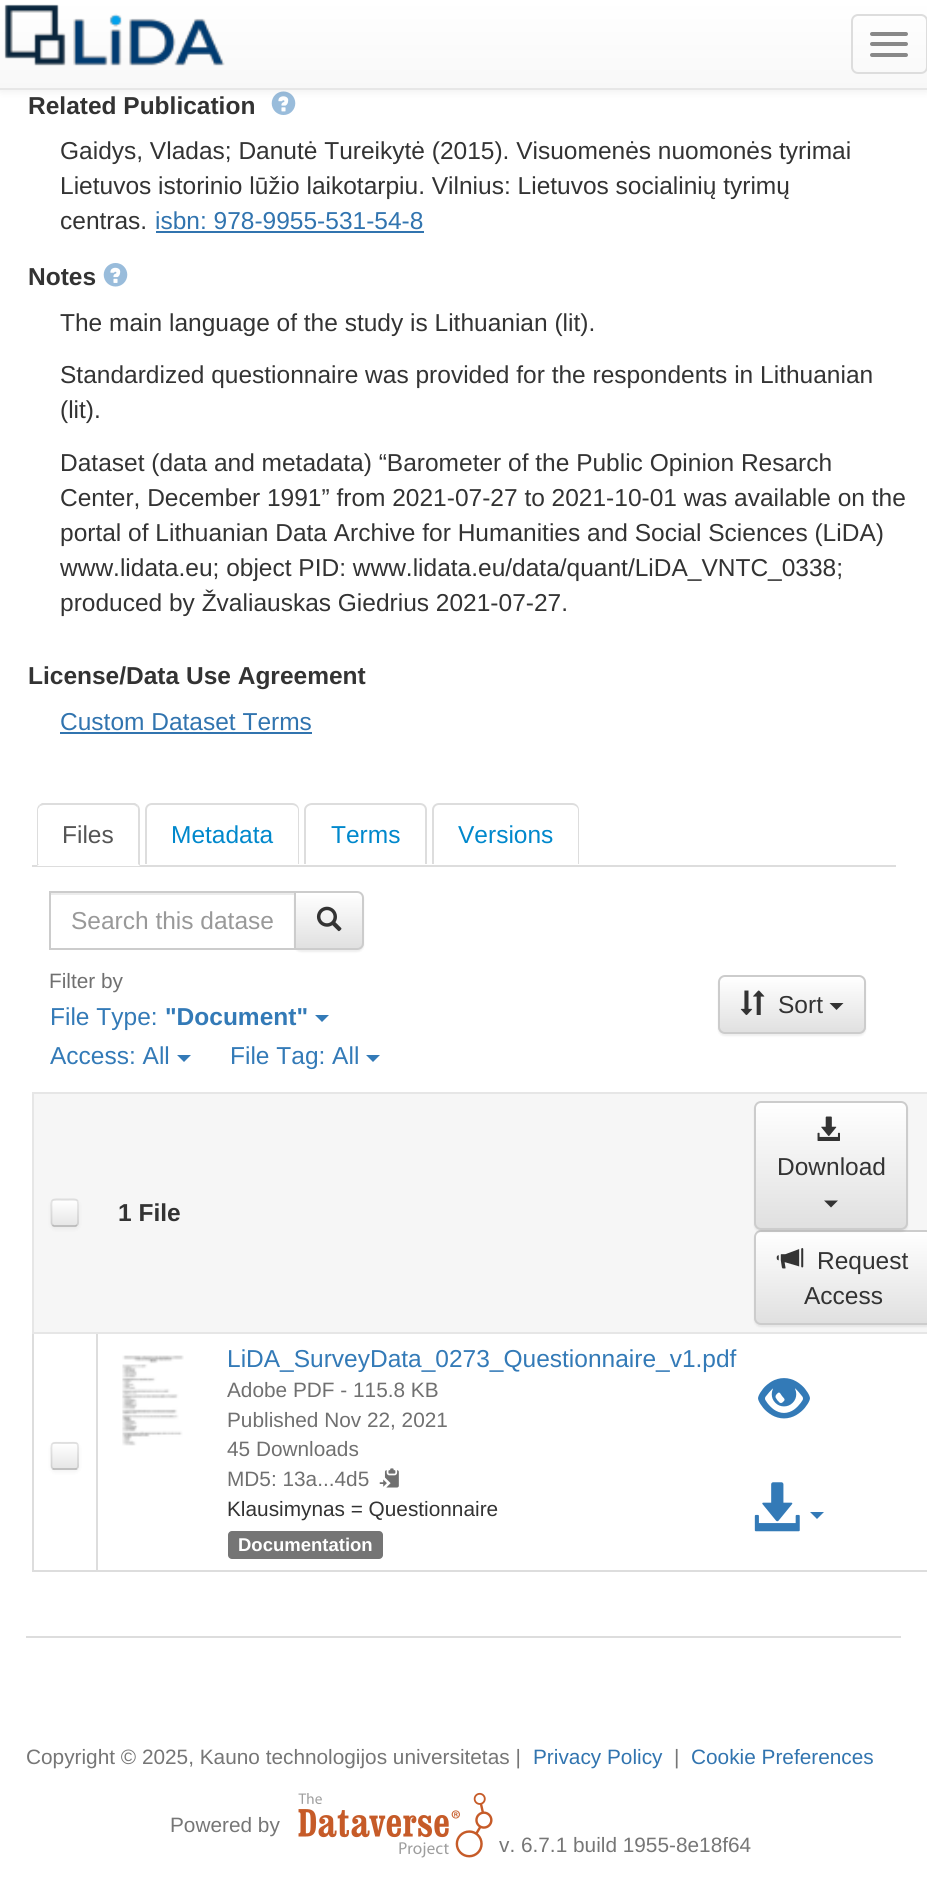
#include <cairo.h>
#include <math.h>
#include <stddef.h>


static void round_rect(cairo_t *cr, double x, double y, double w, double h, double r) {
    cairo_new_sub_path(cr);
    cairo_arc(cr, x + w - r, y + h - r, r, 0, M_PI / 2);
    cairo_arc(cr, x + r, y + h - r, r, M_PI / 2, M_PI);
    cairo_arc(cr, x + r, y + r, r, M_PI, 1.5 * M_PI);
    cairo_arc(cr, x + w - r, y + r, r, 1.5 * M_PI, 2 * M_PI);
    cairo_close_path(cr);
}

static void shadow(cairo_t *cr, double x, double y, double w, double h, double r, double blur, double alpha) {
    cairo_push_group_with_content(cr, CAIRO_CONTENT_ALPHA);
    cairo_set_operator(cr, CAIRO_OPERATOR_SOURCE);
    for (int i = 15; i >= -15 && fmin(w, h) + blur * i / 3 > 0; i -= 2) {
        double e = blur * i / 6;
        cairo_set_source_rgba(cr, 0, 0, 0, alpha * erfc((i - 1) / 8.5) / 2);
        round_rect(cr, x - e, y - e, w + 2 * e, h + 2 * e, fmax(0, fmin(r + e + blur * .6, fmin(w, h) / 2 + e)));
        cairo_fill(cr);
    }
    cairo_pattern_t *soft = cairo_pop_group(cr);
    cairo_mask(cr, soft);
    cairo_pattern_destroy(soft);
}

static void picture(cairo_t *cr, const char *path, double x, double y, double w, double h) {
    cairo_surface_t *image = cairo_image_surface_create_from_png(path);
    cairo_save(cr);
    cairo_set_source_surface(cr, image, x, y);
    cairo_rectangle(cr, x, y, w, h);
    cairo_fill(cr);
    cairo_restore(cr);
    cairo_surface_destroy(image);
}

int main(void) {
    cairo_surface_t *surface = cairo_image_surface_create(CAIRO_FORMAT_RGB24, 927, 1893);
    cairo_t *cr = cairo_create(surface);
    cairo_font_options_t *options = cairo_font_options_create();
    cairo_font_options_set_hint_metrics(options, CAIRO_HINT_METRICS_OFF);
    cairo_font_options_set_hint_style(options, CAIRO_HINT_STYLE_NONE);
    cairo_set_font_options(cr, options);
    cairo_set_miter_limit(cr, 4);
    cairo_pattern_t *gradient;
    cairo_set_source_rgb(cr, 1, 1, 1);
    cairo_paint(cr);
    picture(cr, "img2.png", 271, 91, 25, 24);
    cairo_set_source_rgb(cr, 0, 0, 0);
    shadow(cr, 0, 2, 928, 89, 0, 4.5, 0.07);
    gradient = cairo_pattern_create_linear(464, 0, 464, 88);
    cairo_pattern_add_color_stop_rgba(gradient, 0, 1, 1, 1, 1);
    cairo_pattern_add_color_stop_rgba(gradient, 1, 0.973, 0.973, 0.973, 1);
    cairo_set_source(cr, gradient);
    cairo_pattern_destroy(gradient);
    cairo_rectangle(cr, 0, 0, 927, 88);
    cairo_fill(cr);
    cairo_set_source_rgb(cr, 0.906, 0.906, 0.906);
    cairo_rectangle(cr, 0, 88, 927, 2);
    cairo_fill(cr);
    picture(cr, "img1.png", 4, 4, 221, 62);
    round_rect(cr, 852, 15, 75, 58, 6);
    cairo_set_source_rgb(cr, 0.867, 0.867, 0.867);
    cairo_stroke(cr);
    cairo_set_source_rgb(cr, 0.533, 0.533, 0.533);
    round_rect(cr, 870, 32, 38, 4, 2);
    cairo_fill(cr);
    round_rect(cr, 870, 42, 38, 4, 2);
    cairo_fill(cr);
    round_rect(cr, 870, 53, 38, 4, 2);
    cairo_fill(cr);
    cairo_select_font_face(cr, "Liberation Sans", CAIRO_FONT_SLANT_NORMAL, CAIRO_FONT_WEIGHT_BOLD);
    cairo_set_font_size(cr, 24.5);
    cairo_set_source_rgb(cr, 0.2, 0.2, 0.2);
    cairo_move_to(cr, 28, 114);
    cairo_show_text(cr, "Related Publication");
    cairo_select_font_face(cr, "Liberation Sans", CAIRO_FONT_SLANT_NORMAL, CAIRO_FONT_WEIGHT_NORMAL);
    cairo_move_to(cr, 60, 159);
    cairo_show_text(cr, "Gaidys, Vladas; Danutė Tureikytė (2015). Visuomenės nuomonės tyrimai");
    cairo_move_to(cr, 60, 194);
    cairo_show_text(cr, "Lietuvos istorinio lūžio laikotarpiu. Vilnius: Lietuvos socialinių tyrimų");
    cairo_move_to(cr, 60, 229);
    cairo_show_text(cr, "centras.");
    cairo_set_source_rgb(cr, 0.192, 0.455, 0.686);
    cairo_move_to(cr, 155, 229);
    cairo_show_text(cr, "isbn: 978-9955-531-54-8");
    cairo_rectangle(cr, 156, 231, 268, 2);
    cairo_fill(cr);
    cairo_select_font_face(cr, "Liberation Sans", CAIRO_FONT_SLANT_NORMAL, CAIRO_FONT_WEIGHT_BOLD);
    cairo_set_source_rgb(cr, 0.2, 0.2, 0.2);
    cairo_move_to(cr, 28, 285);
    cairo_show_text(cr, "Notes");
    picture(cr, "img3.png", 103, 263, 25, 24);
    cairo_select_font_face(cr, "Liberation Sans", CAIRO_FONT_SLANT_NORMAL, CAIRO_FONT_WEIGHT_NORMAL);
    cairo_move_to(cr, 60, 331);
    cairo_show_text(cr, "The main language of the study is Lithuanian (lit).");
    cairo_move_to(cr, 60, 383);
    cairo_show_text(cr, "Standardized questionnaire was provided for the respondents in Lithuanian");
    cairo_move_to(cr, 60, 418);
    cairo_show_text(cr, "(lit).");
    cairo_move_to(cr, 60, 471);
    cairo_show_text(cr, "Dataset (data and metadata) “Barometer of the Public Opinion Resarch");
    cairo_move_to(cr, 60, 506);
    cairo_show_text(cr, "Center, December 1991” from 2021-07-27 to 2021-10-01 was available on the");
    cairo_move_to(cr, 60, 541);
    cairo_show_text(cr, "portal of Lithuanian Data Archive for Humanities and Social Sciences (LiDA)");
    cairo_move_to(cr, 60, 576);
    cairo_show_text(cr, "www.lidata.eu; object PID: www.lidata.eu/data/quant/LiDA_VNTC_0338;");
    cairo_move_to(cr, 60, 611);
    cairo_show_text(cr, "produced by Žvaliauskas Giedrius 2021-07-27.");
    cairo_select_font_face(cr, "Liberation Sans", CAIRO_FONT_SLANT_NORMAL, CAIRO_FONT_WEIGHT_BOLD);
    cairo_move_to(cr, 28, 684);
    cairo_show_text(cr, "License/Data Use Agreement");
    cairo_select_font_face(cr, "Liberation Sans", CAIRO_FONT_SLANT_NORMAL, CAIRO_FONT_WEIGHT_NORMAL);
    cairo_set_source_rgb(cr, 0.192, 0.455, 0.686);
    cairo_move_to(cr, 60, 730);
    cairo_show_text(cr, "Custom Dataset Terms");
    cairo_rectangle(cr, 60, 732, 252, 2);
    cairo_fill(cr);
    cairo_set_source_rgb(cr, 0.867, 0.867, 0.867);
    cairo_rectangle(cr, 26, 1636, 875, 2);
    cairo_fill(cr);
    cairo_rectangle(cr, 32, 865, 864, 2);
    cairo_fill(cr);
    cairo_set_source_rgb(cr, 1, 1, 1);
    cairo_new_path(cr);
    cairo_move_to(cr, 44, 803);
    cairo_line_to(cr, 133, 803);
    cairo_curve_to(cr, 137, 803, 140, 806, 140, 810);
    cairo_line_to(cr, 140, 866);
    cairo_line_to(cr, 37, 866);
    cairo_line_to(cr, 37, 810);
    cairo_curve_to(cr, 37, 806, 40, 803, 44, 803);
    cairo_close_path(cr);
    cairo_fill(cr);
    cairo_set_source_rgb(cr, 0.867, 0.867, 0.867);
    cairo_new_path(cr);
    cairo_move_to(cr, 44, 805);
    cairo_curve_to(cr, 42, 805, 41, 806, 40, 806);
    cairo_line_to(cr, 39, 805);
    cairo_line_to(cr, 42, 803);
    cairo_line_to(cr, 135, 803);
    cairo_line_to(cr, 138, 805);
    cairo_line_to(cr, 137, 807);
    cairo_curve_to(cr, 136, 806, 135, 805, 133, 805);
    cairo_close_path(cr);
    cairo_fill(cr);
    cairo_new_path(cr);
    cairo_move_to(cr, 140, 866);
    cairo_line_to(cr, 140, 810);
    cairo_curve_to(cr, 140, 808, 139, 806, 138, 805);
    cairo_line_to(cr, 137, 807);
    cairo_curve_to(cr, 138, 807, 138, 809, 138, 810);
    cairo_line_to(cr, 138, 864);
    cairo_close_path(cr);
    cairo_fill(cr);
    cairo_new_path(cr);
    cairo_move_to(cr, 37, 866);
    cairo_line_to(cr, 39, 864);
    cairo_line_to(cr, 38, 864);
    cairo_line_to(cr, 38, 809);
    cairo_line_to(cr, 40, 806);
    cairo_line_to(cr, 39, 805);
    cairo_curve_to(cr, 38, 806, 37, 808, 37, 810);
    cairo_close_path(cr);
    cairo_fill(cr);
    cairo_set_source_rgb(cr, 0.333, 0.333, 0.333);
    cairo_move_to(cr, 62, 843);
    cairo_show_text(cr, "Files");
    cairo_set_source_rgb(cr, 0.867, 0.867, 0.867);
    cairo_set_fill_rule(cr, CAIRO_FILL_RULE_EVEN_ODD);
    cairo_new_path(cr);
    cairo_move_to(cr, 152, 803);
    cairo_line_to(cr, 292, 803);
    cairo_curve_to(cr, 296, 803, 299, 806, 299, 810);
    cairo_line_to(cr, 299, 864);
    cairo_line_to(cr, 145, 864);
    cairo_line_to(cr, 145, 810);
    cairo_curve_to(cr, 145, 806, 148, 803, 152, 803);
    cairo_close_path(cr);
    cairo_move_to(cr, 152, 805);
    cairo_line_to(cr, 292, 805);
    cairo_curve_to(cr, 295, 805, 298, 807, 298, 810);
    cairo_line_to(cr, 298, 864);
    cairo_line_to(cr, 147, 864);
    cairo_line_to(cr, 147, 810);
    cairo_curve_to(cr, 147, 807, 149, 805, 152, 805);
    cairo_close_path(cr);
    cairo_fill(cr);
    cairo_set_source_rgb(cr, 0, 0.533, 0.8);
    cairo_move_to(cr, 171, 843);
    cairo_show_text(cr, "Metadata");
    cairo_set_source_rgb(cr, 0.867, 0.867, 0.867);
    cairo_new_path(cr);
    cairo_move_to(cr, 312, 803);
    cairo_line_to(cr, 420, 803);
    cairo_curve_to(cr, 424, 803, 427, 806, 427, 810);
    cairo_line_to(cr, 427, 864);
    cairo_line_to(cr, 304, 864);
    cairo_line_to(cr, 304, 810);
    cairo_curve_to(cr, 304, 806, 308, 803, 312, 803);
    cairo_close_path(cr);
    cairo_move_to(cr, 312, 805);
    cairo_line_to(cr, 420, 805);
    cairo_curve_to(cr, 423, 805, 425, 807, 425, 810);
    cairo_line_to(cr, 425, 864);
    cairo_line_to(cr, 306, 864);
    cairo_line_to(cr, 306, 810);
    cairo_curve_to(cr, 306, 807, 309, 805, 312, 805);
    cairo_close_path(cr);
    cairo_fill(cr);
    cairo_set_source_rgb(cr, 0, 0.533, 0.8);
    cairo_move_to(cr, 331, 843);
    cairo_show_text(cr, "Terms");
    cairo_set_source_rgb(cr, 0.867, 0.867, 0.867);
    cairo_new_path(cr);
    cairo_move_to(cr, 439, 803);
    cairo_line_to(cr, 572, 803);
    cairo_curve_to(cr, 576, 803, 579, 806, 579, 810);
    cairo_line_to(cr, 579, 864);
    cairo_line_to(cr, 432, 864);
    cairo_line_to(cr, 432, 810);
    cairo_curve_to(cr, 432, 806, 435, 803, 439, 803);
    cairo_close_path(cr);
    cairo_move_to(cr, 439, 805);
    cairo_line_to(cr, 572, 805);
    cairo_curve_to(cr, 575, 805, 578, 807, 578, 810);
    cairo_line_to(cr, 578, 864);
    cairo_line_to(cr, 434, 864);
    cairo_line_to(cr, 434, 810);
    cairo_curve_to(cr, 434, 807, 436, 805, 439, 805);
    cairo_close_path(cr);
    cairo_fill(cr);
    cairo_set_source_rgb(cr, 0, 0.533, 0.8);
    cairo_move_to(cr, 458, 843);
    cairo_show_text(cr, "Versions");
    cairo_set_source_rgb(cr, 0.925, 0.925, 0.925);
    cairo_rectangle(cr, 51, 893, 243, 2);
    cairo_fill(cr);
    cairo_rectangle(cr, 50, 892, 245, 57);
    cairo_set_source_rgb(cr, 0.8, 0.8, 0.8);
    cairo_stroke(cr);
    cairo_set_source_rgb(cr, 0.6, 0.6, 0.6);
    cairo_move_to(cr, 71, 929);
    cairo_show_text(cr, "Search this datase");
    cairo_set_source_rgb(cr, 0, 0, 0);
    shadow(cr, 294, 893, 70, 59, 7, 1, 0.07);
    cairo_save(cr);
    cairo_set_fill_rule(cr, CAIRO_FILL_RULE_WINDING);
    cairo_new_path(cr);
    cairo_move_to(cr, 294, 891);
    cairo_line_to(cr, 357, 891);
    cairo_curve_to(cr, 361, 891, 364, 894, 364, 898);
    cairo_line_to(cr, 364, 943);
    cairo_curve_to(cr, 364, 947, 361, 950, 357, 950);
    cairo_line_to(cr, 294, 950);
    cairo_close_path(cr);
    cairo_clip(cr);
    gradient = cairo_pattern_create_linear(329, 893, 329, 949);
    cairo_pattern_add_color_stop_rgba(gradient, 0, 1, 1, 1, 1);
    cairo_pattern_add_color_stop_rgba(gradient, 1, 0.878, 0.878, 0.878, 1);
    cairo_set_source(cr, gradient);
    cairo_pattern_destroy(gradient);
    cairo_rectangle(cr, 296, 893, 68, 56);
    cairo_fill(cr);
    cairo_restore(cr);
    cairo_new_path(cr);
    cairo_move_to(cr, 295, 892);
    cairo_line_to(cr, 357, 892);
    cairo_curve_to(cr, 360.5, 892, 363, 894.5, 363, 898);
    cairo_line_to(cr, 363, 943);
    cairo_curve_to(cr, 363, 946.5, 360.5, 949, 357, 949);
    cairo_line_to(cr, 295, 949);
    cairo_close_path(cr);
    cairo_set_source_rgb(cr, 0.8, 0.8, 0.8);
    cairo_stroke(cr);
    picture(cr, "img4.png", 316, 906, 26, 26);
    cairo_set_font_size(cr, 20.8);
    cairo_set_source_rgb(cr, 0.439, 0.439, 0.439);
    cairo_move_to(cr, 49, 988);
    cairo_show_text(cr, "Filter by");
    cairo_set_font_size(cr, 24.5);
    cairo_set_source_rgb(cr, 0.2, 0.478, 0.718);
    cairo_move_to(cr, 50, 1025);
    cairo_show_text(cr, "File Type:");
    cairo_select_font_face(cr, "Liberation Sans", CAIRO_FONT_SLANT_NORMAL, CAIRO_FONT_WEIGHT_BOLD);
    cairo_move_to(cr, 165, 1025);
    cairo_show_text(cr, "\"Document\"");
    cairo_set_fill_rule(cr, CAIRO_FILL_RULE_WINDING);
    cairo_new_path(cr);
    cairo_move_to(cr, 315, 1015);
    cairo_line_to(cr, 329, 1015);
    cairo_line_to(cr, 322, 1022);
    cairo_close_path(cr);
    cairo_fill(cr);
    cairo_select_font_face(cr, "Liberation Sans", CAIRO_FONT_SLANT_NORMAL, CAIRO_FONT_WEIGHT_NORMAL);
    cairo_move_to(cr, 50, 1064);
    cairo_show_text(cr, "Access: All");
    cairo_new_path(cr);
    cairo_move_to(cr, 177, 1055);
    cairo_line_to(cr, 191, 1055);
    cairo_line_to(cr, 184, 1062);
    cairo_close_path(cr);
    cairo_fill(cr);
    cairo_move_to(cr, 230, 1064);
    cairo_show_text(cr, "File Tag: All");
    cairo_new_path(cr);
    cairo_move_to(cr, 366, 1055);
    cairo_line_to(cr, 380, 1055);
    cairo_line_to(cr, 373, 1062);
    cairo_close_path(cr);
    cairo_fill(cr);
    cairo_set_source_rgb(cr, 0, 0, 0);
    shadow(cr, 718, 977, 148, 59, 7, 1, 0.07);
    cairo_save(cr);
    round_rect(cr, 718, 975, 148, 59, 7);
    cairo_clip(cr);
    gradient = cairo_pattern_create_linear(792, 977, 792, 1033);
    cairo_pattern_add_color_stop_rgba(gradient, 0, 1, 1, 1, 1);
    cairo_pattern_add_color_stop_rgba(gradient, 1, 0.878, 0.878, 0.878, 1);
    cairo_set_source(cr, gradient);
    cairo_pattern_destroy(gradient);
    cairo_rectangle(cr, 718, 977, 148, 56);
    cairo_fill(cr);
    cairo_restore(cr);
    cairo_set_source_rgba(cr, 1, 1, 1, 0.15);
    cairo_new_path(cr);
    cairo_move_to(cr, 724, 978);
    cairo_line_to(cr, 859, 978);
    cairo_curve_to(cr, 862, 978, 864, 981, 864, 984);
    cairo_line_to(cr, 864, 1029);
    cairo_line_to(cr, 863, 1032);
    cairo_curve_to(cr, 864, 1031, 865, 1029, 865, 1028);
    cairo_line_to(cr, 865, 982);
    cairo_curve_to(cr, 865, 979, 863, 977, 860, 977);
    cairo_line_to(cr, 724, 977);
    cairo_curve_to(cr, 721, 977, 719, 979, 719, 982);
    cairo_line_to(cr, 719, 984);
    cairo_curve_to(cr, 719, 981, 722, 978, 724, 978);
    cairo_close_path(cr);
    cairo_fill(cr);
    round_rect(cr, 719, 976, 146, 57, 6);
    cairo_set_source_rgb(cr, 0.8, 0.8, 0.8);
    cairo_stroke(cr);
    picture(cr, "img5.png", 740, 990, 25, 25);
    cairo_set_source_rgb(cr, 0.2, 0.2, 0.2);
    cairo_move_to(cr, 778, 1013);
    cairo_show_text(cr, "Sort");
    cairo_new_path(cr);
    cairo_move_to(cr, 829.5, 1003);
    cairo_line_to(cr, 843.5, 1003);
    cairo_line_to(cr, 836.5, 1010);
    cairo_close_path(cr);
    cairo_fill(cr);
    cairo_set_source_rgb(cr, 0.961, 0.961, 0.961);
    cairo_rectangle(cr, 34, 1094, 893, 238);
    cairo_fill(cr);
    cairo_set_source_rgb(cr, 0.902, 0.902, 0.902);
    cairo_rectangle(cr, 32, 1092, 895, 2);
    cairo_fill(cr);
    cairo_set_source_rgb(cr, 0.867, 0.867, 0.867);
    cairo_rectangle(cr, 32, 1570, 895, 2);
    cairo_fill(cr);
    cairo_rectangle(cr, 32, 1332, 2, 240);
    cairo_fill(cr);
    cairo_rectangle(cr, 96, 1332, 2, 240);
    cairo_fill(cr);
    cairo_set_source_rgb(cr, 0.902, 0.902, 0.902);
    cairo_rectangle(cr, 32, 1332, 895, 2);
    cairo_fill(cr);
    cairo_rectangle(cr, 32, 1092, 2, 242);
    cairo_fill(cr);
    cairo_set_source_rgb(cr, 0, 0, 0);
    shadow(cr, 51, 1201, 28, 28, 4, 2, 0.05);
    cairo_set_source_rgb(cr, 0.961, 0.961, 0.961);
    round_rect(cr, 51, 1199, 28, 28, 4);
    cairo_fill(cr);
    cairo_save(cr);
    round_rect(cr, 51, 1199, 28, 28, 4);
    cairo_clip(cr);
    gradient = cairo_pattern_create_linear(65, 1201, 65, 1225);
    cairo_pattern_add_color_stop_rgba(gradient, 0, 1, 1, 1, 1);
    cairo_pattern_add_color_stop_rgba(gradient, 1, 0.902, 0.902, 0.902, 1);
    cairo_set_source(cr, gradient);
    cairo_pattern_destroy(gradient);
    cairo_rectangle(cr, 51, 1201, 28, 24);
    cairo_fill(cr);
    cairo_restore(cr);
    cairo_new_path(cr);
    cairo_move_to(cr, 77, 1225);
    cairo_curve_to(cr, 76.5, 1225.5, 76, 1226, 75, 1226);
    cairo_line_to(cr, 54, 1226);
    cairo_curve_to(cr, 53.5, 1226, 53, 1225.5, 52.5, 1225);
    cairo_set_source_rgb(cr, 0.722, 0.722, 0.722);
    cairo_set_line_width(cr, 1.8);
    cairo_stroke(cr);
    cairo_new_path(cr);
    cairo_move_to(cr, 52.5, 1225);
    cairo_curve_to(cr, 51, 1224, 51.5, 1221, 51.5, 1220);
    cairo_line_to(cr, 51.5, 1213);
    cairo_curve_to(cr, 51.5, 1197.5, 49.5, 1199.5, 65, 1199.5);
    cairo_curve_to(cr, 80, 1199.5, 78, 1197.5, 78, 1213);
    cairo_line_to(cr, 78, 1220);
    cairo_curve_to(cr, 78, 1221, 78.5, 1224, 77, 1225);
    cairo_set_source_rgba(cr, 0, 0, 0, 0.1);
    cairo_stroke(cr);
    cairo_select_font_face(cr, "Liberation Sans", CAIRO_FONT_SLANT_NORMAL, CAIRO_FONT_WEIGHT_BOLD);
    cairo_set_source_rgb(cr, 0.2, 0.2, 0.2);
    cairo_move_to(cr, 118, 1221);
    cairo_show_text(cr, "1 File");
    cairo_set_source_rgb(cr, 0, 0, 0);
    shadow(cr, 754, 1232, 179, 95, 7, 1, 0.07);
    cairo_save(cr);
    round_rect(cr, 754, 1230, 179, 95, 7);
    cairo_clip(cr);
    gradient = cairo_pattern_create_linear(844, 1232, 844, 1323);
    cairo_pattern_add_color_stop_rgba(gradient, 0, 1, 1, 1, 1);
    cairo_pattern_add_color_stop_rgba(gradient, 1, 0.878, 0.878, 0.878, 1);
    cairo_set_source(cr, gradient);
    cairo_pattern_destroy(gradient);
    cairo_rectangle(cr, 754, 1232, 173, 91);
    cairo_fill(cr);
    cairo_restore(cr);
    round_rect(cr, 755, 1231, 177, 93, 6);
    cairo_set_source_rgb(cr, 0.8, 0.8, 0.8);
    cairo_set_line_width(cr, 2);
    cairo_stroke(cr);
    cairo_set_source_rgb(cr, 0, 0, 0);
    shadow(cr, 754, 1103, 154, 129, 7, 1, 0.07);
    cairo_save(cr);
    round_rect(cr, 754, 1101, 154, 129, 7);
    cairo_clip(cr);
    gradient = cairo_pattern_create_linear(831, 1103, 831, 1229);
    cairo_pattern_add_color_stop_rgba(gradient, 0, 1, 1, 1, 1);
    cairo_pattern_add_color_stop_rgba(gradient, 1, 0.878, 0.878, 0.878, 1);
    cairo_set_source(cr, gradient);
    cairo_pattern_destroy(gradient);
    cairo_rectangle(cr, 754, 1103, 154, 126);
    cairo_fill(cr);
    cairo_restore(cr);
    cairo_set_source_rgba(cr, 1, 1, 1, 0.15);
    cairo_new_path(cr);
    cairo_move_to(cr, 761, 1104);
    cairo_line_to(cr, 901, 1104);
    cairo_curve_to(cr, 904, 1104, 906, 1107, 906, 1110);
    cairo_line_to(cr, 906, 1225);
    cairo_line_to(cr, 905, 1228);
    cairo_curve_to(cr, 906, 1227, 907, 1225, 907, 1224);
    cairo_line_to(cr, 907, 1108);
    cairo_curve_to(cr, 907, 1105, 905, 1103, 902, 1103);
    cairo_line_to(cr, 761, 1103);
    cairo_curve_to(cr, 758, 1103, 756, 1105, 756, 1108);
    cairo_line_to(cr, 756, 1110);
    cairo_curve_to(cr, 756, 1107, 758, 1104, 761, 1104);
    cairo_close_path(cr);
    cairo_fill(cr);
    round_rect(cr, 755, 1102, 152, 127, 6);
    cairo_set_source_rgb(cr, 0.8, 0.8, 0.8);
    cairo_stroke(cr);
    picture(cr, "img6.png", 817, 1116, 23, 25);
    cairo_select_font_face(cr, "Liberation Sans", CAIRO_FONT_SLANT_NORMAL, CAIRO_FONT_WEIGHT_NORMAL);
    cairo_set_source_rgb(cr, 0.2, 0.2, 0.2);
    cairo_move_to(cr, 777, 1175);
    cairo_show_text(cr, "Download");
    cairo_new_path(cr);
    cairo_move_to(cr, 824, 1200.5);
    cairo_line_to(cr, 838, 1200.5);
    cairo_line_to(cr, 831, 1207.5);
    cairo_close_path(cr);
    cairo_fill(cr);
    picture(cr, "img7.png", 776, 1248, 28, 21);
    cairo_move_to(cr, 817, 1269);
    cairo_show_text(cr, "Request");
    cairo_move_to(cr, 804, 1304);
    cairo_show_text(cr, "Access");
    cairo_set_source_rgb(cr, 0, 0, 0);
    shadow(cr, 51, 1444, 28, 28, 4, 2, 0.05);
    cairo_set_source_rgb(cr, 0.961, 0.961, 0.961);
    round_rect(cr, 51, 1442, 28, 28, 4);
    cairo_fill(cr);
    cairo_save(cr);
    round_rect(cr, 51, 1442, 28, 28, 4);
    cairo_clip(cr);
    gradient = cairo_pattern_create_linear(65, 1444, 65, 1468);
    cairo_pattern_add_color_stop_rgba(gradient, 0, 1, 1, 1, 1);
    cairo_pattern_add_color_stop_rgba(gradient, 1, 0.902, 0.902, 0.902, 1);
    cairo_set_source(cr, gradient);
    cairo_pattern_destroy(gradient);
    cairo_rectangle(cr, 51, 1444, 28, 24);
    cairo_fill(cr);
    cairo_restore(cr);
    cairo_new_path(cr);
    cairo_move_to(cr, 77, 1468.5);
    cairo_curve_to(cr, 76.5, 1469, 76, 1469, 75, 1469);
    cairo_line_to(cr, 54, 1469);
    cairo_curve_to(cr, 53.5, 1469, 53, 1469, 52.5, 1468.5);
    cairo_set_source_rgba(cr, 0, 0, 0, 0.25);
    cairo_set_line_width(cr, 1.8);
    cairo_stroke(cr);
    cairo_new_path(cr);
    cairo_move_to(cr, 52.5, 1468.5);
    cairo_curve_to(cr, 51, 1467, 51.5, 1464.5, 51.5, 1463);
    cairo_line_to(cr, 51.5, 1456);
    cairo_curve_to(cr, 51.5, 1440.5, 49.5, 1443, 65, 1443);
    cairo_curve_to(cr, 80, 1443, 78, 1440.5, 78, 1456);
    cairo_line_to(cr, 78, 1463);
    cairo_curve_to(cr, 78, 1464.5, 78.5, 1467, 77, 1468.5);
    cairo_set_source_rgba(cr, 0, 0, 0, 0.1);
    cairo_stroke(cr);
    picture(cr, "img8.png", 122, 1355, 62, 91);
    cairo_set_source_rgb(cr, 0.2, 0.478, 0.718);
    cairo_move_to(cr, 227, 1367);
    cairo_show_text(cr, "LiDA_SurveyData_0273_Questionnaire_v1.pdf");
    cairo_set_font_size(cr, 20.8);
    cairo_set_source_rgb(cr, 0.439, 0.439, 0.439);
    cairo_move_to(cr, 227, 1397);
    cairo_show_text(cr, "Adobe PDF - 115.8 KB");
    cairo_move_to(cr, 227, 1427);
    cairo_show_text(cr, "Published Nov 22, 2021");
    cairo_move_to(cr, 227, 1456);
    cairo_show_text(cr, "45 Downloads");
    cairo_move_to(cr, 227, 1486);
    cairo_show_text(cr, "MD5: 13a...4d5");
    picture(cr, "img9.png", 379, 1468, 20, 20);
    cairo_set_source_rgb(cr, 0.2, 0.2, 0.2);
    cairo_move_to(cr, 227, 1516);
    cairo_show_text(cr, "Klausimynas = Questionnaire");
    cairo_set_source_rgb(cr, 0.459, 0.459, 0.459);
    round_rect(cr, 228, 1531, 155, 28, 4);
    cairo_fill(cr);
    cairo_select_font_face(cr, "Liberation Sans", CAIRO_FONT_SLANT_NORMAL, CAIRO_FONT_WEIGHT_BOLD);
    cairo_set_font_size(cr, 18.5);
    cairo_set_source_rgb(cr, 1, 1, 1);
    cairo_move_to(cr, 238, 1551);
    cairo_show_text(cr, "Documentation");
    picture(cr, "img10.png", 758, 1378, 52, 41);
    picture(cr, "img11.png", 754, 1482, 46, 50);
    cairo_set_source_rgb(cr, 0.2, 0.478, 0.718);
    cairo_new_path(cr);
    cairo_move_to(cr, 810, 1512);
    cairo_line_to(cr, 824, 1512);
    cairo_line_to(cr, 817, 1519);
    cairo_close_path(cr);
    cairo_fill(cr);
    cairo_select_font_face(cr, "Liberation Sans", CAIRO_FONT_SLANT_NORMAL, CAIRO_FONT_WEIGHT_NORMAL);
    cairo_set_font_size(cr, 20.8);
    cairo_set_source_rgb(cr, 0.463, 0.463, 0.463);
    cairo_move_to(cr, 26, 1764);
    cairo_show_text(cr, "Copyright © 2025, Kauno technologijos universitetas |");
    cairo_set_source_rgb(cr, 0.192, 0.455, 0.686);
    cairo_move_to(cr, 533, 1764);
    cairo_show_text(cr, "Privacy Policy");
    cairo_set_source_rgb(cr, 0.463, 0.463, 0.463);
    cairo_move_to(cr, 674, 1764);
    cairo_show_text(cr, "|");
    cairo_set_source_rgb(cr, 0.192, 0.455, 0.686);
    cairo_move_to(cr, 691, 1764);
    cairo_show_text(cr, "Cookie Preferences");
    cairo_set_source_rgb(cr, 0.463, 0.463, 0.463);
    cairo_move_to(cr, 170, 1832);
    cairo_show_text(cr, "Powered by");
    picture(cr, "img12.png", 298, 1792, 195, 66);
    cairo_move_to(cr, 499, 1852);
    cairo_show_text(cr, "v. 6.7.1 build 1955-8e18f64");
    cairo_surface_write_to_png(surface, "page.png");
    cairo_font_options_destroy(options);
    cairo_destroy(cr);
    cairo_surface_destroy(surface);
    return 0;
}
